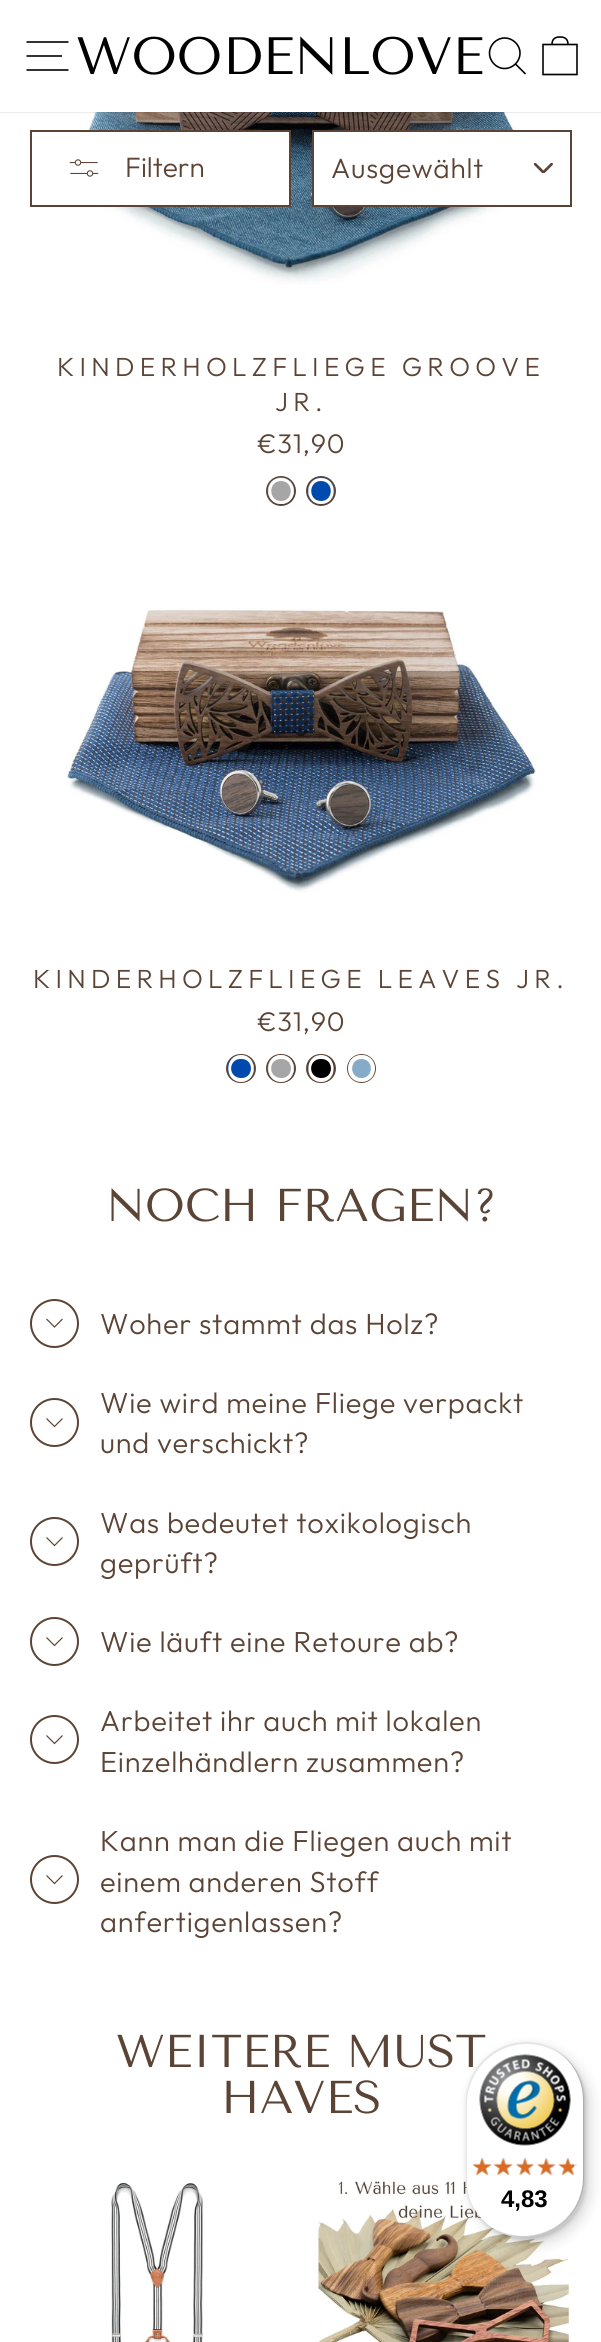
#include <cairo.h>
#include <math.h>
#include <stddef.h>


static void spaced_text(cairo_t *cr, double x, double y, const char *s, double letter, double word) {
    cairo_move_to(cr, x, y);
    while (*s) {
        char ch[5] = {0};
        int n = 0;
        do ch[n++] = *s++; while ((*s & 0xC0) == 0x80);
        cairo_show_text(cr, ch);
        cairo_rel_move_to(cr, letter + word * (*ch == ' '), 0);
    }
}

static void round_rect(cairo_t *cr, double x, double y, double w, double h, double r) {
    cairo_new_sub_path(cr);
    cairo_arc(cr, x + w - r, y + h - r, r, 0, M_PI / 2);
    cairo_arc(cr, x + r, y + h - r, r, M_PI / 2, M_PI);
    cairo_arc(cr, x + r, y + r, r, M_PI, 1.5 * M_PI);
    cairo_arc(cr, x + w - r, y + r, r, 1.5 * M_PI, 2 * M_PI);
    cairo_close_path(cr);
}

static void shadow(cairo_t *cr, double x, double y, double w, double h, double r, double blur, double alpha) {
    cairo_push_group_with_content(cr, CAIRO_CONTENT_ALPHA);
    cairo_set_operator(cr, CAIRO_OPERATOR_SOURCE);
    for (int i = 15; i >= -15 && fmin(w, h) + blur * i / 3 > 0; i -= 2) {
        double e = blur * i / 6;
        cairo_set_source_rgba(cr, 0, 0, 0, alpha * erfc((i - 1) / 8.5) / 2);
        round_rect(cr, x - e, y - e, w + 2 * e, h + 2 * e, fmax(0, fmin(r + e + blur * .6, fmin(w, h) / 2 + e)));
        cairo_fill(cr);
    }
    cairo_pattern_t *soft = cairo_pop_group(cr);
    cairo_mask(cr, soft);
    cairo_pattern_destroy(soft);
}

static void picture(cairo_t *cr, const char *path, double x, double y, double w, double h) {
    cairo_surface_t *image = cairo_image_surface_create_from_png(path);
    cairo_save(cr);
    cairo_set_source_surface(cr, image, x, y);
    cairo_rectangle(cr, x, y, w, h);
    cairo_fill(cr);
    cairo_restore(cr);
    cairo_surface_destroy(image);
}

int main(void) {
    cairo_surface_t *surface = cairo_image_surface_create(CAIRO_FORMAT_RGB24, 601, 2342);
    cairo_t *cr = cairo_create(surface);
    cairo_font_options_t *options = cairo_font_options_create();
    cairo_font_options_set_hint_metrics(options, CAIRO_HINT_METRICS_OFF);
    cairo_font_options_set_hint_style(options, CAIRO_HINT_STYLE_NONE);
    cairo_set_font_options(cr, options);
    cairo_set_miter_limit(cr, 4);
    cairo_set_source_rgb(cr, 1, 1, 1);
    cairo_paint(cr);
    picture(cr, "img3.png", 72, 112, 467, 173);
    cairo_set_source_rgb(cr, 0, 0, 0);
    shadow(cr, 0, 0, 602, 112, 0, 1, 0.2);
    cairo_set_source_rgb(cr, 1, 1, 1);
    cairo_rectangle(cr, 0, 0, 601, 112);
    cairo_fill(cr);
    cairo_new_path(cr);
    cairo_move_to(cr, 26.5, 42);
    cairo_line_to(cr, 68.5, 42);
    cairo_move_to(cr, 26.5, 56);
    cairo_line_to(cr, 62, 56);
    cairo_move_to(cr, 26.5, 70);
    cairo_line_to(cr, 68.5, 70);
    cairo_set_source_rgb(cr, 0, 0, 0);
    cairo_set_line_width(cr, 1.6);
    cairo_stroke(cr);
    cairo_select_font_face(cr, "Tenor Sans", CAIRO_FONT_SLANT_NORMAL, CAIRO_FONT_WEIGHT_NORMAL);
    cairo_set_font_size(cr, 52.5);
    cairo_move_to(cr, 76, 74);
    cairo_show_text(cr, "WOODENLOVE");
    cairo_new_path(cr);
    cairo_move_to(cr, 520, 53);
    cairo_curve_to(cr, 520, 61.5, 513, 68.5, 504.5, 68.5);
    cairo_curve_to(cr, 496.5, 68.5, 489.5, 61.5, 489.5, 53);
    cairo_curve_to(cr, 489.5, 45, 496.5, 38, 504.5, 38);
    cairo_curve_to(cr, 513, 38, 520, 45, 520, 53);
    cairo_close_path(cr);
    cairo_move_to(cr, 525.5, 74);
    cairo_line_to(cr, 515.5, 64);
    cairo_stroke(cr);
    cairo_new_path(cr);
    cairo_move_to(cr, 543, 44.5);
    cairo_line_to(cr, 577, 44.5);
    cairo_line_to(cr, 577, 74.5);
    cairo_line_to(cr, 543, 74.5);
    cairo_close_path(cr);
    cairo_move_to(cr, 552, 44.5);
    cairo_curve_to(cr, 552, 38.5, 555.5, 37, 560, 37);
    cairo_curve_to(cr, 564.5, 37, 568, 38.5, 568, 44.5);
    cairo_stroke(cr);
    cairo_set_source_rgb(cr, 1, 1, 1);
    cairo_rectangle(cr, 72, 132, 217, 73);
    cairo_fill(cr);
    cairo_rectangle(cr, 31, 131, 259, 75);
    cairo_set_source_rgb(cr, 0.357, 0.267, 0.208);
    cairo_set_line_width(cr, 2);
    cairo_stroke(cr);
    picture(cr, "img1.png", 69, 159, 30, 18);
    cairo_select_font_face(cr, "Outfit Light", CAIRO_FONT_SLANT_NORMAL, CAIRO_FONT_WEIGHT_NORMAL);
    cairo_set_font_size(cr, 28);
    cairo_move_to(cr, 125, 177);
    cairo_show_text(cr, "Filtern");
    cairo_set_source_rgb(cr, 1, 1, 1);
    cairo_rectangle(cr, 314, 132, 225, 73);
    cairo_fill(cr);
    picture(cr, "img2.png", 534, 163, 19, 10);
    cairo_rectangle(cr, 313, 131, 258, 75);
    cairo_set_source_rgb(cr, 0.357, 0.267, 0.208);
    cairo_stroke(cr);
    spaced_text(cr, 331, 178, "Ausgewählt", 0.75, 0);
    cairo_set_font_size(cr, 26.25);
    spaced_text(cr, 57, 376, "KINDERHOLZFLIEGE GROOVE", 5.25, 0);
    spaced_text(cr, 275, 411, "JR.", 5.25, 0);
    cairo_set_font_size(cr, 27);
    spaced_text(cr, 257, 453, "€31,90", 0.75, 0);
    cairo_new_path(cr);
    cairo_arc(cr, 281, 491, 14, 0, 2 * M_PI);
    cairo_stroke(cr);
    picture(cr, "img4.png", 267, 477, 27, 27);
    cairo_set_source_rgb(cr, 1, 1, 1);
    cairo_set_fill_rule(cr, CAIRO_FILL_RULE_EVEN_ODD);
    cairo_new_path(cr);
    cairo_move_to(cr, 281, 478);
    cairo_curve_to(cr, 264, 478, 264, 504, 281, 504);
    cairo_curve_to(cr, 298, 504, 298, 478, 281, 478);
    cairo_close_path(cr);
    cairo_move_to(cr, 281, 481);
    cairo_curve_to(cr, 268, 481, 268, 501, 281, 501);
    cairo_curve_to(cr, 294, 501, 294, 481, 281, 481);
    cairo_close_path(cr);
    cairo_fill(cr);
    cairo_arc(cr, 321, 491, 14, 0, 2 * M_PI);
    cairo_set_source_rgb(cr, 0.357, 0.267, 0.208);
    cairo_stroke(cr);
    picture(cr, "img5.png", 308, 477, 27, 27);
    cairo_set_source_rgb(cr, 1, 1, 1);
    cairo_new_path(cr);
    cairo_move_to(cr, 321, 478);
    cairo_curve_to(cr, 304, 478, 304, 504, 321, 504);
    cairo_curve_to(cr, 338, 504, 338, 478, 321, 478);
    cairo_close_path(cr);
    cairo_move_to(cr, 321, 481);
    cairo_curve_to(cr, 308, 481, 308, 501, 321, 501);
    cairo_curve_to(cr, 334, 501, 334, 481, 321, 481);
    cairo_close_path(cr);
    cairo_fill(cr);
    picture(cr, "img6.png", 66, 608, 471, 284);
    cairo_set_font_size(cr, 26.25);
    cairo_set_source_rgb(cr, 0.357, 0.267, 0.208);
    spaced_text(cr, 33, 988, "KINDERHOLZFLIEGE LEAVES JR.", 5.25, 0);
    cairo_set_font_size(cr, 27);
    spaced_text(cr, 257, 1031, "€31,90", 0.75, 0);
    round_rect(cr, 227, 1055, 28, 27, 13.5);
    cairo_stroke(cr);
    picture(cr, "img7.png", 227, 1055, 27, 27);
    cairo_set_source_rgb(cr, 1, 1, 1);
    cairo_new_path(cr);
    cairo_move_to(cr, 241, 1055);
    cairo_curve_to(cr, 224, 1055, 224, 1082, 241, 1082);
    cairo_curve_to(cr, 258, 1082, 258, 1055, 241, 1055);
    cairo_close_path(cr);
    cairo_move_to(cr, 240.5, 1059);
    cairo_curve_to(cr, 228.5, 1059, 227.5, 1077, 240.5, 1078);
    cairo_curve_to(cr, 254, 1079, 254.5, 1059, 241.5, 1059);
    cairo_close_path(cr);
    cairo_fill(cr);
    round_rect(cr, 267, 1055, 28, 27, 13.5);
    cairo_set_source_rgb(cr, 0.357, 0.267, 0.208);
    cairo_stroke(cr);
    picture(cr, "img8.png", 267, 1055, 27, 27);
    cairo_set_source_rgb(cr, 1, 1, 1);
    cairo_new_path(cr);
    cairo_move_to(cr, 281, 1055);
    cairo_curve_to(cr, 264, 1055, 264, 1082, 281, 1082);
    cairo_curve_to(cr, 298, 1082, 298, 1055, 281, 1055);
    cairo_close_path(cr);
    cairo_move_to(cr, 280.5, 1059);
    cairo_curve_to(cr, 268.5, 1059, 267.5, 1077, 280.5, 1078);
    cairo_curve_to(cr, 294, 1079, 294.5, 1059, 281.5, 1059);
    cairo_close_path(cr);
    cairo_fill(cr);
    round_rect(cr, 307, 1055, 28, 27, 13.5);
    cairo_set_source_rgb(cr, 0.357, 0.267, 0.208);
    cairo_stroke(cr);
    picture(cr, "img9.png", 308, 1055, 27, 27);
    cairo_set_source_rgb(cr, 1, 1, 1);
    cairo_new_path(cr);
    cairo_move_to(cr, 321, 1055);
    cairo_curve_to(cr, 304, 1055, 304, 1082, 321, 1082);
    cairo_curve_to(cr, 338, 1082, 338, 1055, 321, 1055);
    cairo_close_path(cr);
    cairo_move_to(cr, 320.5, 1059);
    cairo_curve_to(cr, 308.5, 1059, 307.5, 1077, 320.5, 1078);
    cairo_curve_to(cr, 334, 1079, 334.5, 1059, 321.5, 1059);
    cairo_close_path(cr);
    cairo_fill(cr);
    cairo_arc(cr, 361.5, 1068.5, 13.5, 0, 2 * M_PI);
    cairo_set_source_rgb(cr, 0.357, 0.267, 0.208);
    cairo_stroke(cr);
    picture(cr, "img10.png", 348, 1055, 27, 27);
    cairo_set_source_rgb(cr, 1, 1, 1);
    cairo_new_path(cr);
    cairo_move_to(cr, 361.5, 1055);
    cairo_curve_to(cr, 343.5, 1055, 343.5, 1082, 361.5, 1082);
    cairo_curve_to(cr, 379.5, 1082, 379.5, 1055, 361.5, 1055);
    cairo_close_path(cr);
    cairo_move_to(cr, 361.5, 1059);
    cairo_curve_to(cr, 349, 1059, 349, 1078, 361.5, 1078);
    cairo_curve_to(cr, 374, 1078, 374, 1059, 361.5, 1059);
    cairo_close_path(cr);
    cairo_fill(cr);
    cairo_select_font_face(cr, "Tenor Sans", CAIRO_FONT_SLANT_NORMAL, CAIRO_FONT_WEIGHT_NORMAL);
    cairo_set_font_size(cr, 46);
    cairo_set_source_rgb(cr, 0.357, 0.267, 0.208);
    cairo_move_to(cr, 106, 1221);
    cairo_show_text(cr, "NOCH FRAGEN?");
    cairo_new_path(cr);
    cairo_arc(cr, 54.5, 1323.5, 23.5, 0, 2 * M_PI);
    cairo_stroke(cr);
    cairo_new_path(cr);
    cairo_move_to(cr, 46.5, 1319);
    cairo_line_to(cr, 54.5, 1327);
    cairo_line_to(cr, 62.5, 1319);
    cairo_set_line_width(cr, 1.2);
    cairo_stroke(cr);
    cairo_select_font_face(cr, "Outfit Light", CAIRO_FONT_SLANT_NORMAL, CAIRO_FONT_WEIGHT_NORMAL);
    cairo_set_font_size(cr, 29);
    spaced_text(cr, 100, 1334, "Woher stammt das Holz?", 0.75, 0);
    cairo_new_path(cr);
    cairo_arc(cr, 54.5, 1422.5, 23.5, 0, 2 * M_PI);
    cairo_set_line_width(cr, 2);
    cairo_stroke(cr);
    cairo_new_path(cr);
    cairo_move_to(cr, 46.5, 1418.5);
    cairo_line_to(cr, 54.5, 1426.5);
    cairo_line_to(cr, 62.5, 1418.5);
    cairo_set_line_width(cr, 1.2);
    cairo_stroke(cr);
    spaced_text(cr, 100, 1413, "Wie wird meine Fliege verpackt", 0.75, 0);
    spaced_text(cr, 100, 1453, "und verschickt?", 0.75, 0);
    cairo_new_path(cr);
    cairo_arc(cr, 54.5, 1541.5, 23.5, 0, 2 * M_PI);
    cairo_set_line_width(cr, 2);
    cairo_stroke(cr);
    cairo_new_path(cr);
    cairo_move_to(cr, 46.5, 1537.5);
    cairo_line_to(cr, 54.5, 1545.5);
    cairo_line_to(cr, 62.5, 1537.5);
    cairo_set_line_width(cr, 1.2);
    cairo_stroke(cr);
    spaced_text(cr, 100, 1533, "Was bedeutet toxikologisch", 0.75, 0);
    spaced_text(cr, 100, 1573, "geprüft?", 0.75, 0);
    cairo_new_path(cr);
    cairo_arc(cr, 54.5, 1641.5, 23.5, 0, 2 * M_PI);
    cairo_set_line_width(cr, 2);
    cairo_stroke(cr);
    cairo_new_path(cr);
    cairo_move_to(cr, 46.5, 1637.5);
    cairo_line_to(cr, 54.5, 1645.5);
    cairo_line_to(cr, 62.5, 1637.5);
    cairo_set_line_width(cr, 1.2);
    cairo_stroke(cr);
    spaced_text(cr, 100, 1652, "Wie läuft eine Retoure ab?", 0.75, 0);
    cairo_new_path(cr);
    cairo_arc(cr, 54.5, 1739.5, 23.5, 0, 2 * M_PI);
    cairo_set_line_width(cr, 2);
    cairo_stroke(cr);
    cairo_new_path(cr);
    cairo_move_to(cr, 46.5, 1735.5);
    cairo_line_to(cr, 54.5, 1743.5);
    cairo_line_to(cr, 62.5, 1735.5);
    cairo_set_line_width(cr, 1.2);
    cairo_stroke(cr);
    spaced_text(cr, 100, 1731, "Arbeitet ihr auch mit lokalen", 0.75, 0);
    spaced_text(cr, 100, 1772, "Einzelhändlern zusammen?", 0.75, 0);
    spaced_text(cr, 100, 1851, "Kann man die Fliegen auch mit", 0.75, 0);
    cairo_new_path(cr);
    cairo_arc(cr, 54.5, 1879.5, 23.5, 0, 2 * M_PI);
    cairo_set_line_width(cr, 2);
    cairo_stroke(cr);
    cairo_new_path(cr);
    cairo_move_to(cr, 46.5, 1875.5);
    cairo_line_to(cr, 54.5, 1883.5);
    cairo_line_to(cr, 62.5, 1875.5);
    cairo_set_line_width(cr, 1.2);
    cairo_stroke(cr);
    spaced_text(cr, 100, 1892, "einem anderen Stoff", 0.75, 0);
    spaced_text(cr, 100, 1932, "anfertigenlassen?", 0.75, 0);
    cairo_select_font_face(cr, "Tenor Sans", CAIRO_FONT_SLANT_NORMAL, CAIRO_FONT_WEIGHT_NORMAL);
    cairo_set_font_size(cr, 46);
    cairo_move_to(cr, 116, 2067);
    cairo_show_text(cr, "WEITERE MUST");
    cairo_move_to(cr, 221, 2113);
    cairo_show_text(cr, "HAVES");
    picture(cr, "img11.png", 111, 2182, 93, 160);
    picture(cr, "img12.png", 318, 2181, 251, 161);
    cairo_set_source_rgb(cr, 0, 0, 0);
    shadow(cr, 471, 2048, 119, 196, 59.5, 7, 0.15);
    shadow(cr, 467, 2044, 119, 196, 59.5, 2, 0.15);
    cairo_set_source_rgb(cr, 1, 1, 1);
    round_rect(cr, 466, 2042, 119, 196, 59.5);
    cairo_fill(cr);
    cairo_set_source_rgba(cr, 0, 0, 0, 0.1);
    cairo_set_fill_rule(cr, CAIRO_FILL_RULE_WINDING);
    cairo_new_path(cr);
    cairo_move_to(cr, 527, 2044);
    cairo_curve_to(cr, 550, 2044, 570, 2057, 580, 2077);
    cairo_curve_to(cr, 570, 2056, 550, 2042, 526, 2042);
    cairo_curve_to(cr, 493, 2042, 466, 2069, 466, 2102);
    cairo_line_to(cr, 466, 2178);
    cairo_curve_to(cr, 466, 2191, 470, 2202, 476, 2212);
    cairo_curve_to(cr, 470, 2203, 467, 2192, 467, 2180);
    cairo_line_to(cr, 467, 2104);
    cairo_curve_to(cr, 467, 2071, 494, 2044, 527, 2044);
    cairo_close_path(cr);
    cairo_fill(cr);
    cairo_set_source_rgba(cr, 0, 0, 0, 0.2);
    cairo_new_path(cr);
    cairo_move_to(cr, 489, 2225);
    cairo_curve_to(cr, 499, 2233, 512, 2238, 526, 2238);
    cairo_curve_to(cr, 558, 2238, 585, 2211, 585, 2178);
    cairo_line_to(cr, 585, 2102);
    cairo_curve_to(cr, 585, 2082, 576, 2066, 562, 2055);
    cairo_curve_to(cr, 575, 2066, 583, 2082, 583, 2100);
    cairo_line_to(cr, 583, 2177);
    cairo_curve_to(cr, 583, 2210, 556, 2236, 523, 2236);
    cairo_curve_to(cr, 510, 2236, 498, 2232, 489, 2225);
    cairo_close_path(cr);
    cairo_fill(cr);
    cairo_set_source_rgba(cr, 0.196, 0.196, 0.196, 0.2);
    cairo_new_path(cr);
    cairo_move_to(cr, 497, 2231);
    cairo_curve_to(cr, 506, 2235, 515, 2238, 526, 2238);
    cairo_curve_to(cr, 558, 2238, 585, 2211, 585, 2178);
    cairo_line_to(cr, 585, 2102);
    cairo_curve_to(cr, 585, 2079, 573, 2060, 554, 2049);
    cairo_curve_to(cr, 572, 2060, 583, 2079, 583, 2101);
    cairo_line_to(cr, 583, 2178);
    cairo_curve_to(cr, 583, 2211, 557, 2237, 524, 2237);
    cairo_curve_to(cr, 514, 2237, 505, 2235, 497, 2231);
    cairo_close_path(cr);
    cairo_fill(cr);
    cairo_set_source_rgba(cr, 1, 1, 1, 0.3);
    cairo_new_path(cr);
    cairo_move_to(cr, 495, 2229);
    cairo_curve_to(cr, 504, 2235, 514, 2238, 526, 2238);
    cairo_curve_to(cr, 558, 2238, 585, 2211, 585, 2178);
    cairo_line_to(cr, 585, 2102);
    cairo_curve_to(cr, 585, 2081, 574, 2063, 558, 2052);
    cairo_curve_to(cr, 574, 2063, 584, 2081, 584, 2101);
    cairo_line_to(cr, 584, 2178);
    cairo_curve_to(cr, 584, 2211, 557, 2237, 524, 2237);
    cairo_curve_to(cr, 513, 2237, 503, 2234, 495, 2229);
    cairo_close_path(cr);
    cairo_fill(cr);
    picture(cr, "img13.png", 479, 2054, 92, 92);
    picture(cr, "img19.png", 473, 2158, 18, 17);
    picture(cr, "img14.png", 472, 2157, 20, 18);
    picture(cr, "img20.png", 495, 2158, 18, 17);
    picture(cr, "img15.png", 493, 2157, 20, 18);
    picture(cr, "img20.png", 516, 2158, 18, 17);
    picture(cr, "img16.png", 516, 2157, 18, 18);
    picture(cr, "img21.png", 538, 2158, 18, 17);
    picture(cr, "img17.png", 537, 2157, 18, 18);
    picture(cr, "img21.png", 559, 2158, 18, 17);
    picture(cr, "img18.png", 558, 2157, 16, 18);
    cairo_select_font_face(cr, "Liberation Sans", CAIRO_FONT_SLANT_NORMAL, CAIRO_FONT_WEIGHT_BOLD);
    cairo_set_font_size(cr, 24);
    cairo_set_source_rgb(cr, 0, 0, 0);
    cairo_move_to(cr, 501, 2207);
    cairo_show_text(cr, "4,83");
    cairo_surface_write_to_png(surface, "page.png");
    cairo_font_options_destroy(options);
    cairo_destroy(cr);
    cairo_surface_destroy(surface);
    return 0;
}
